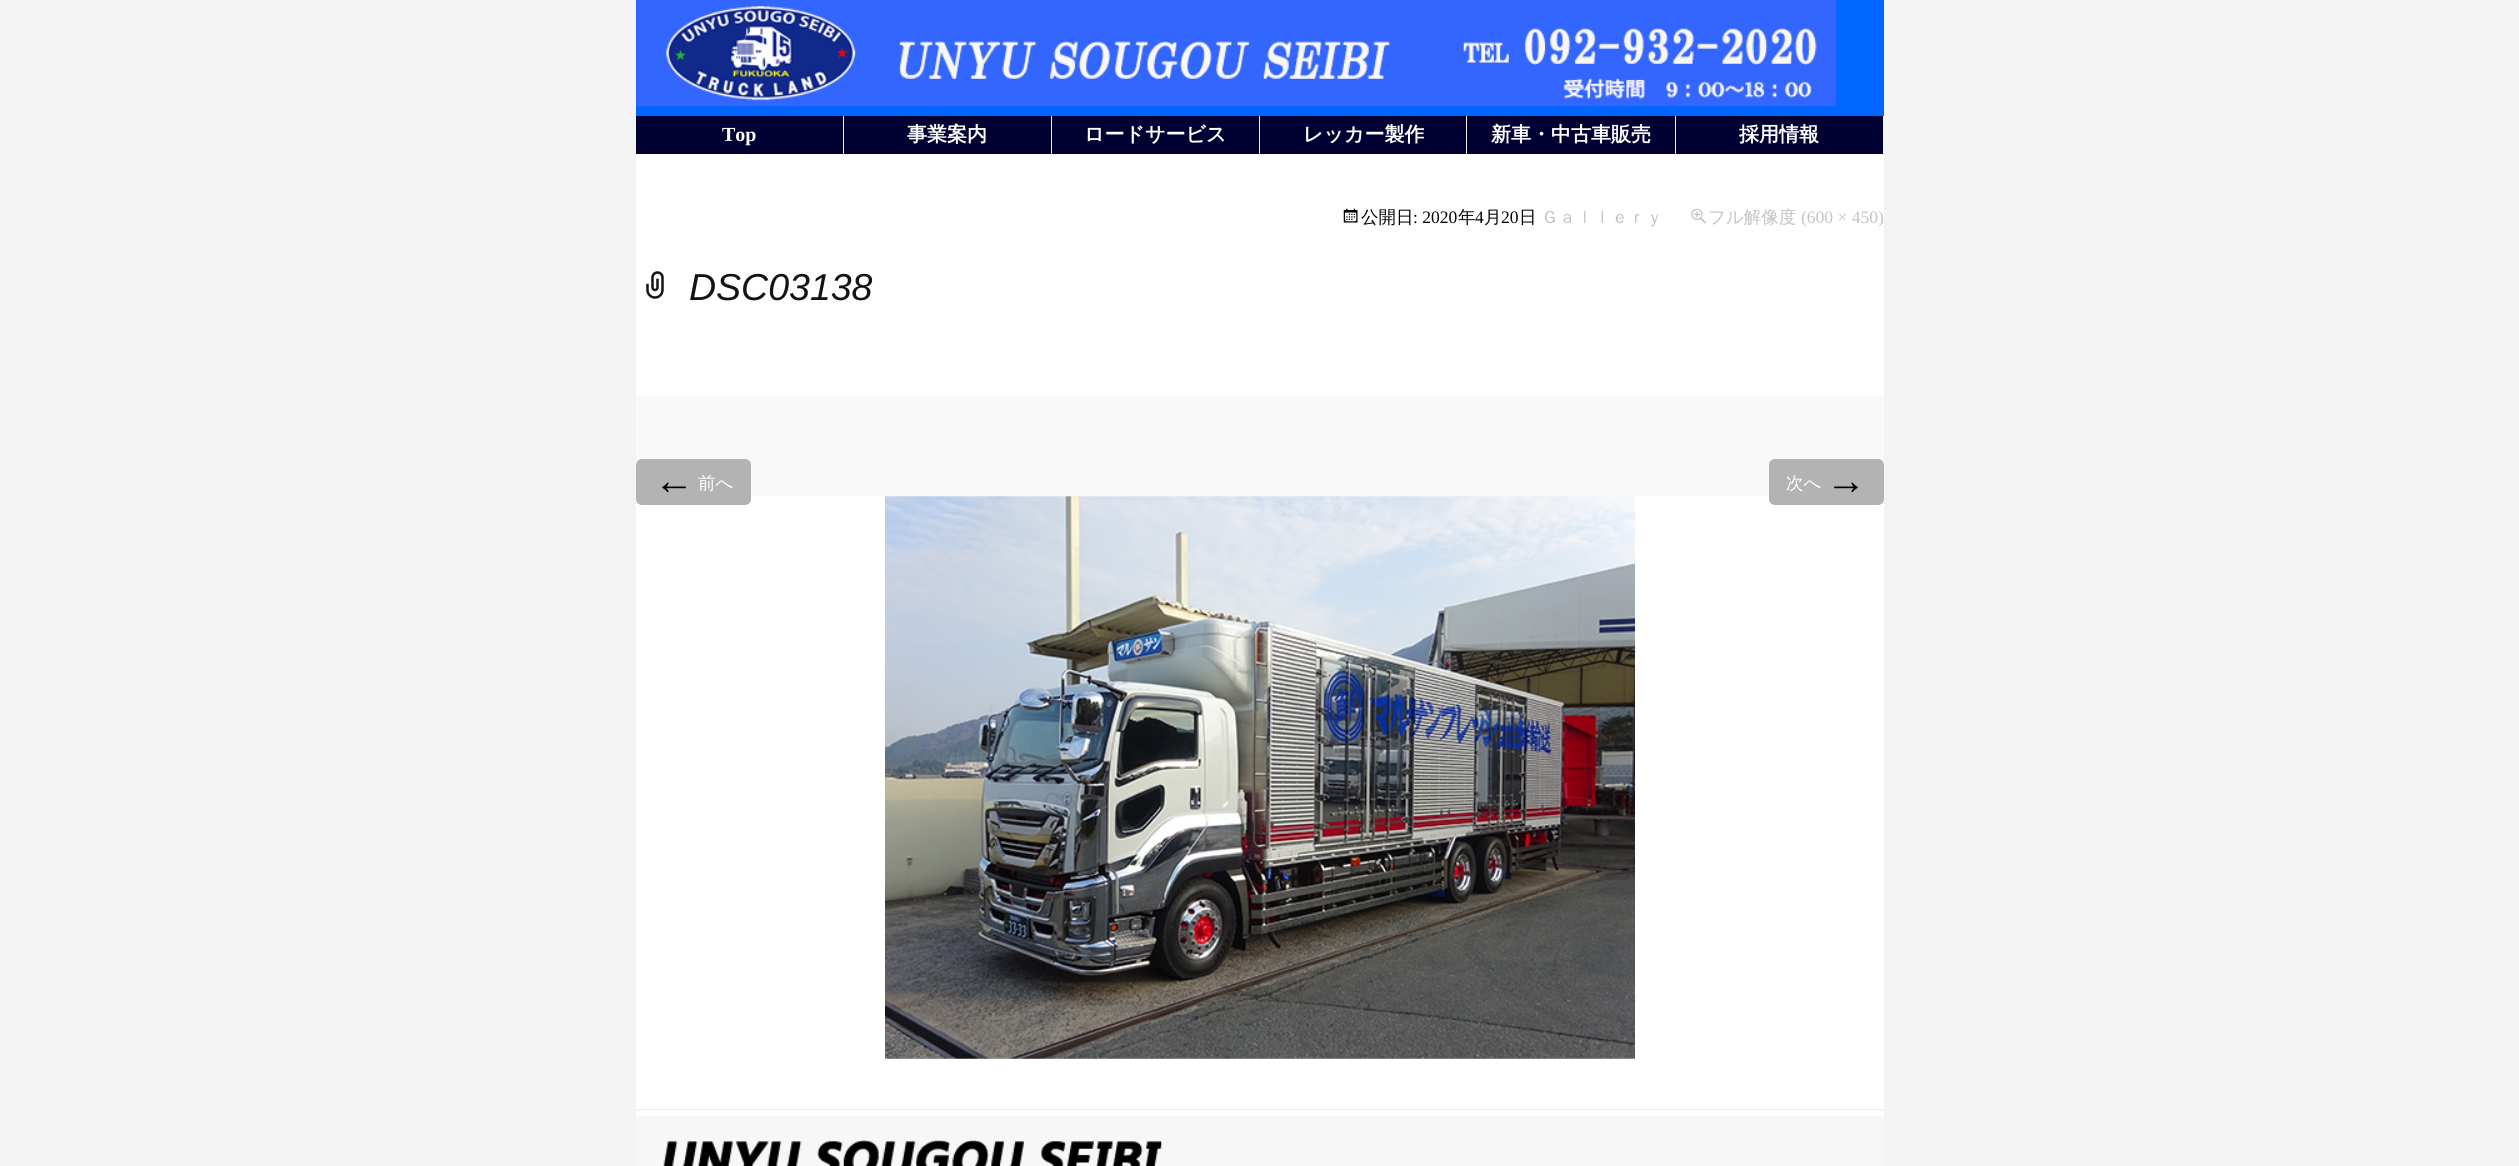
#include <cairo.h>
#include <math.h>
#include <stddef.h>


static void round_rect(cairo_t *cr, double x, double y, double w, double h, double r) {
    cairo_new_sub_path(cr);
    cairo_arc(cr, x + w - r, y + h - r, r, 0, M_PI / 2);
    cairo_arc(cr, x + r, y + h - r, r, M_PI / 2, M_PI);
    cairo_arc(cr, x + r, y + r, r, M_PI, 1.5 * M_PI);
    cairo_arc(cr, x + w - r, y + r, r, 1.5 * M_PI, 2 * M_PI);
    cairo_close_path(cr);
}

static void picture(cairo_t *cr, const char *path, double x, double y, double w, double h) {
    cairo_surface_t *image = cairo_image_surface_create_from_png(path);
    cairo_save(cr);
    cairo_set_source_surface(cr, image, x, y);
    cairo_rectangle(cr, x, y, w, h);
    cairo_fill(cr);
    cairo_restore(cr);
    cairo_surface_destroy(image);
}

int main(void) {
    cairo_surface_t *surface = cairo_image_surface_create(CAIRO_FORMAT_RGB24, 2519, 1166);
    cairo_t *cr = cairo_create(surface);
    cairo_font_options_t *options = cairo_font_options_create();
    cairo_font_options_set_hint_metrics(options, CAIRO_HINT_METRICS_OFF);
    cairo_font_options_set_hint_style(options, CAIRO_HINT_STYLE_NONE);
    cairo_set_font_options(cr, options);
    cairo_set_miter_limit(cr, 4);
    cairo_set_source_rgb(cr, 0.953, 0.953, 0.953);
    cairo_paint(cr);
    cairo_set_source_rgb(cr, 1, 1, 1);
    cairo_rectangle(cr, 636, 154, 1248, 962);
    cairo_fill(cr);
    cairo_set_source_rgb(cr, 0, 0.4, 1);
    cairo_rectangle(cr, 636, 0, 1248, 116);
    cairo_fill(cr);
    picture(cr, "img1.png", 636, 0, 1201, 107);
    cairo_set_source_rgb(cr, 0, 0, 0.2);
    cairo_rectangle(cr, 636, 116, 1247, 38);
    cairo_fill(cr);
    cairo_set_source_rgb(cr, 0.933, 0.933, 0.933);
    cairo_rectangle(cr, 843, 116, 1, 38);
    cairo_fill(cr);
    cairo_select_font_face(cr, "Liberation Serif", CAIRO_FONT_SLANT_NORMAL, CAIRO_FONT_WEIGHT_BOLD);
    cairo_set_font_size(cr, 20);
    cairo_set_source_rgb(cr, 1, 1, 1);
    cairo_move_to(cr, 722, 141);
    cairo_show_text(cr, "Top");
    cairo_set_source_rgb(cr, 0.933, 0.933, 0.933);
    cairo_rectangle(cr, 1051, 116, 1, 38);
    cairo_fill(cr);
    cairo_select_font_face(cr, "WenQuanYi Zen Hei", CAIRO_FONT_SLANT_NORMAL, CAIRO_FONT_WEIGHT_BOLD);
    cairo_set_source_rgb(cr, 1, 1, 1);
    cairo_move_to(cr, 907, 141);
    cairo_show_text(cr, "事業案内");
    cairo_set_source_rgb(cr, 0.933, 0.933, 0.933);
    cairo_rectangle(cr, 1259, 116, 1, 38);
    cairo_fill(cr);
    cairo_set_source_rgb(cr, 1, 1, 1);
    cairo_move_to(cr, 1084, 141);
    cairo_show_text(cr, "ロードサービス");
    cairo_set_source_rgb(cr, 0.933, 0.933, 0.933);
    cairo_rectangle(cr, 1466, 116, 1, 38);
    cairo_fill(cr);
    cairo_set_source_rgb(cr, 1, 1, 1);
    cairo_move_to(cr, 1303, 141);
    cairo_show_text(cr, "レッカー製作");
    cairo_set_source_rgb(cr, 0.933, 0.933, 0.933);
    cairo_rectangle(cr, 1675, 116, 1, 38);
    cairo_fill(cr);
    cairo_set_source_rgb(cr, 1, 1, 1);
    cairo_move_to(cr, 1491, 141);
    cairo_show_text(cr, "新車・中古車販売");
    cairo_set_source_rgb(cr, 0.933, 0.933, 0.933);
    cairo_rectangle(cr, 1883, 116, 1, 38);
    cairo_fill(cr);
    cairo_set_source_rgb(cr, 1, 1, 1);
    cairo_move_to(cr, 1739, 141);
    cairo_show_text(cr, "採用情報");
    cairo_set_source_rgb(cr, 0.922, 0.922, 0.922);
    cairo_rectangle(cr, 636, 1109, 1248, 1);
    cairo_fill(cr);
    picture(cr, "img2.png", 1343, 208, 15, 15);
    cairo_select_font_face(cr, "WenQuanYi Zen Hei Medium", CAIRO_FONT_SLANT_NORMAL, CAIRO_FONT_WEIGHT_NORMAL);
    cairo_set_font_size(cr, 17.5);
    cairo_set_source_rgb(cr, 0, 0, 0);
    cairo_move_to(cr, 1361, 223);
    cairo_show_text(cr, "公開日");
    cairo_select_font_face(cr, "Liberation Serif", CAIRO_FONT_SLANT_NORMAL, CAIRO_FONT_WEIGHT_NORMAL);
    cairo_move_to(cr, 1413, 223);
    cairo_show_text(cr, ": 2020");
    cairo_select_font_face(cr, "WenQuanYi Zen Hei Medium", CAIRO_FONT_SLANT_NORMAL, CAIRO_FONT_WEIGHT_NORMAL);
    cairo_move_to(cr, 1458, 223);
    cairo_show_text(cr, "年");
    cairo_select_font_face(cr, "Liberation Serif", CAIRO_FONT_SLANT_NORMAL, CAIRO_FONT_WEIGHT_NORMAL);
    cairo_move_to(cr, 1475, 223);
    cairo_show_text(cr, "4");
    cairo_select_font_face(cr, "WenQuanYi Zen Hei Medium", CAIRO_FONT_SLANT_NORMAL, CAIRO_FONT_WEIGHT_NORMAL);
    cairo_move_to(cr, 1484, 223);
    cairo_show_text(cr, "月");
    cairo_select_font_face(cr, "Liberation Serif", CAIRO_FONT_SLANT_NORMAL, CAIRO_FONT_WEIGHT_NORMAL);
    cairo_move_to(cr, 1501, 223);
    cairo_show_text(cr, "20");
    cairo_select_font_face(cr, "WenQuanYi Zen Hei Medium", CAIRO_FONT_SLANT_NORMAL, CAIRO_FONT_WEIGHT_NORMAL);
    cairo_move_to(cr, 1519, 223);
    cairo_show_text(cr, "日");
    cairo_set_source_rgb(cr, 0.765, 0.765, 0.765);
    cairo_move_to(cr, 1541, 223);
    cairo_show_text(cr, "Ｇａｌｌｅｒｙ");
    picture(cr, "img3.png", 1691, 208, 15, 16);
    cairo_move_to(cr, 1708, 223);
    cairo_show_text(cr, "フル解像度");
    cairo_select_font_face(cr, "Liberation Serif", CAIRO_FONT_SLANT_NORMAL, CAIRO_FONT_WEIGHT_NORMAL);
    cairo_move_to(cr, 1801, 223);
    cairo_show_text(cr, "(600 × 450)");
    picture(cr, "img4.png", 646, 271, 18, 28);
    cairo_select_font_face(cr, "Liberation Sans", CAIRO_FONT_SLANT_ITALIC, CAIRO_FONT_WEIGHT_NORMAL);
    cairo_set_font_size(cr, 37.5);
    cairo_set_source_rgb(cr, 0.078, 0.078, 0.078);
    cairo_move_to(cr, 689, 300);
    cairo_show_text(cr, "DSC03138");
    cairo_set_source_rgb(cr, 0.976, 0.976, 0.976);
    cairo_rectangle(cr, 636, 396, 1248, 100);
    cairo_fill(cr);
    cairo_set_source_rgb(cr, 0.702, 0.702, 0.702);
    round_rect(cr, 636, 459, 115, 46, 6);
    cairo_fill(cr);
    cairo_select_font_face(cr, "Liberation Serif", CAIRO_FONT_SLANT_NORMAL, CAIRO_FONT_WEIGHT_NORMAL);
    cairo_set_font_size(cr, 40);
    cairo_set_source_rgb(cr, 0, 0, 0);
    cairo_move_to(cr, 654, 494);
    cairo_show_text(cr, "←");
    cairo_select_font_face(cr, "WenQuanYi Zen Hei Medium", CAIRO_FONT_SLANT_NORMAL, CAIRO_FONT_WEIGHT_NORMAL);
    cairo_set_font_size(cr, 17.5);
    cairo_set_source_rgb(cr, 1, 1, 1);
    cairo_move_to(cr, 698, 489);
    cairo_show_text(cr, "前へ");
    cairo_set_source_rgb(cr, 0.702, 0.702, 0.702);
    round_rect(cr, 1769, 459, 115, 46, 6);
    cairo_fill(cr);
    cairo_set_source_rgb(cr, 1, 1, 1);
    cairo_move_to(cr, 1786, 489);
    cairo_show_text(cr, "次へ");
    cairo_select_font_face(cr, "Liberation Serif", CAIRO_FONT_SLANT_NORMAL, CAIRO_FONT_WEIGHT_NORMAL);
    cairo_set_font_size(cr, 40);
    cairo_set_source_rgb(cr, 0, 0, 0);
    cairo_move_to(cr, 1826, 494);
    cairo_show_text(cr, "→");
    picture(cr, "img5.png", 885, 496, 750, 563);
    cairo_set_source_rgb(cr, 0.965, 0.965, 0.965);
    cairo_rectangle(cr, 636, 1116, 1248, 50);
    cairo_fill(cr);
    picture(cr, "img6.png", 663, 1140, 499, 26);
    cairo_surface_write_to_png(surface, "page.png");
    cairo_font_options_destroy(options);
    cairo_destroy(cr);
    cairo_surface_destroy(surface);
    return 0;
}
